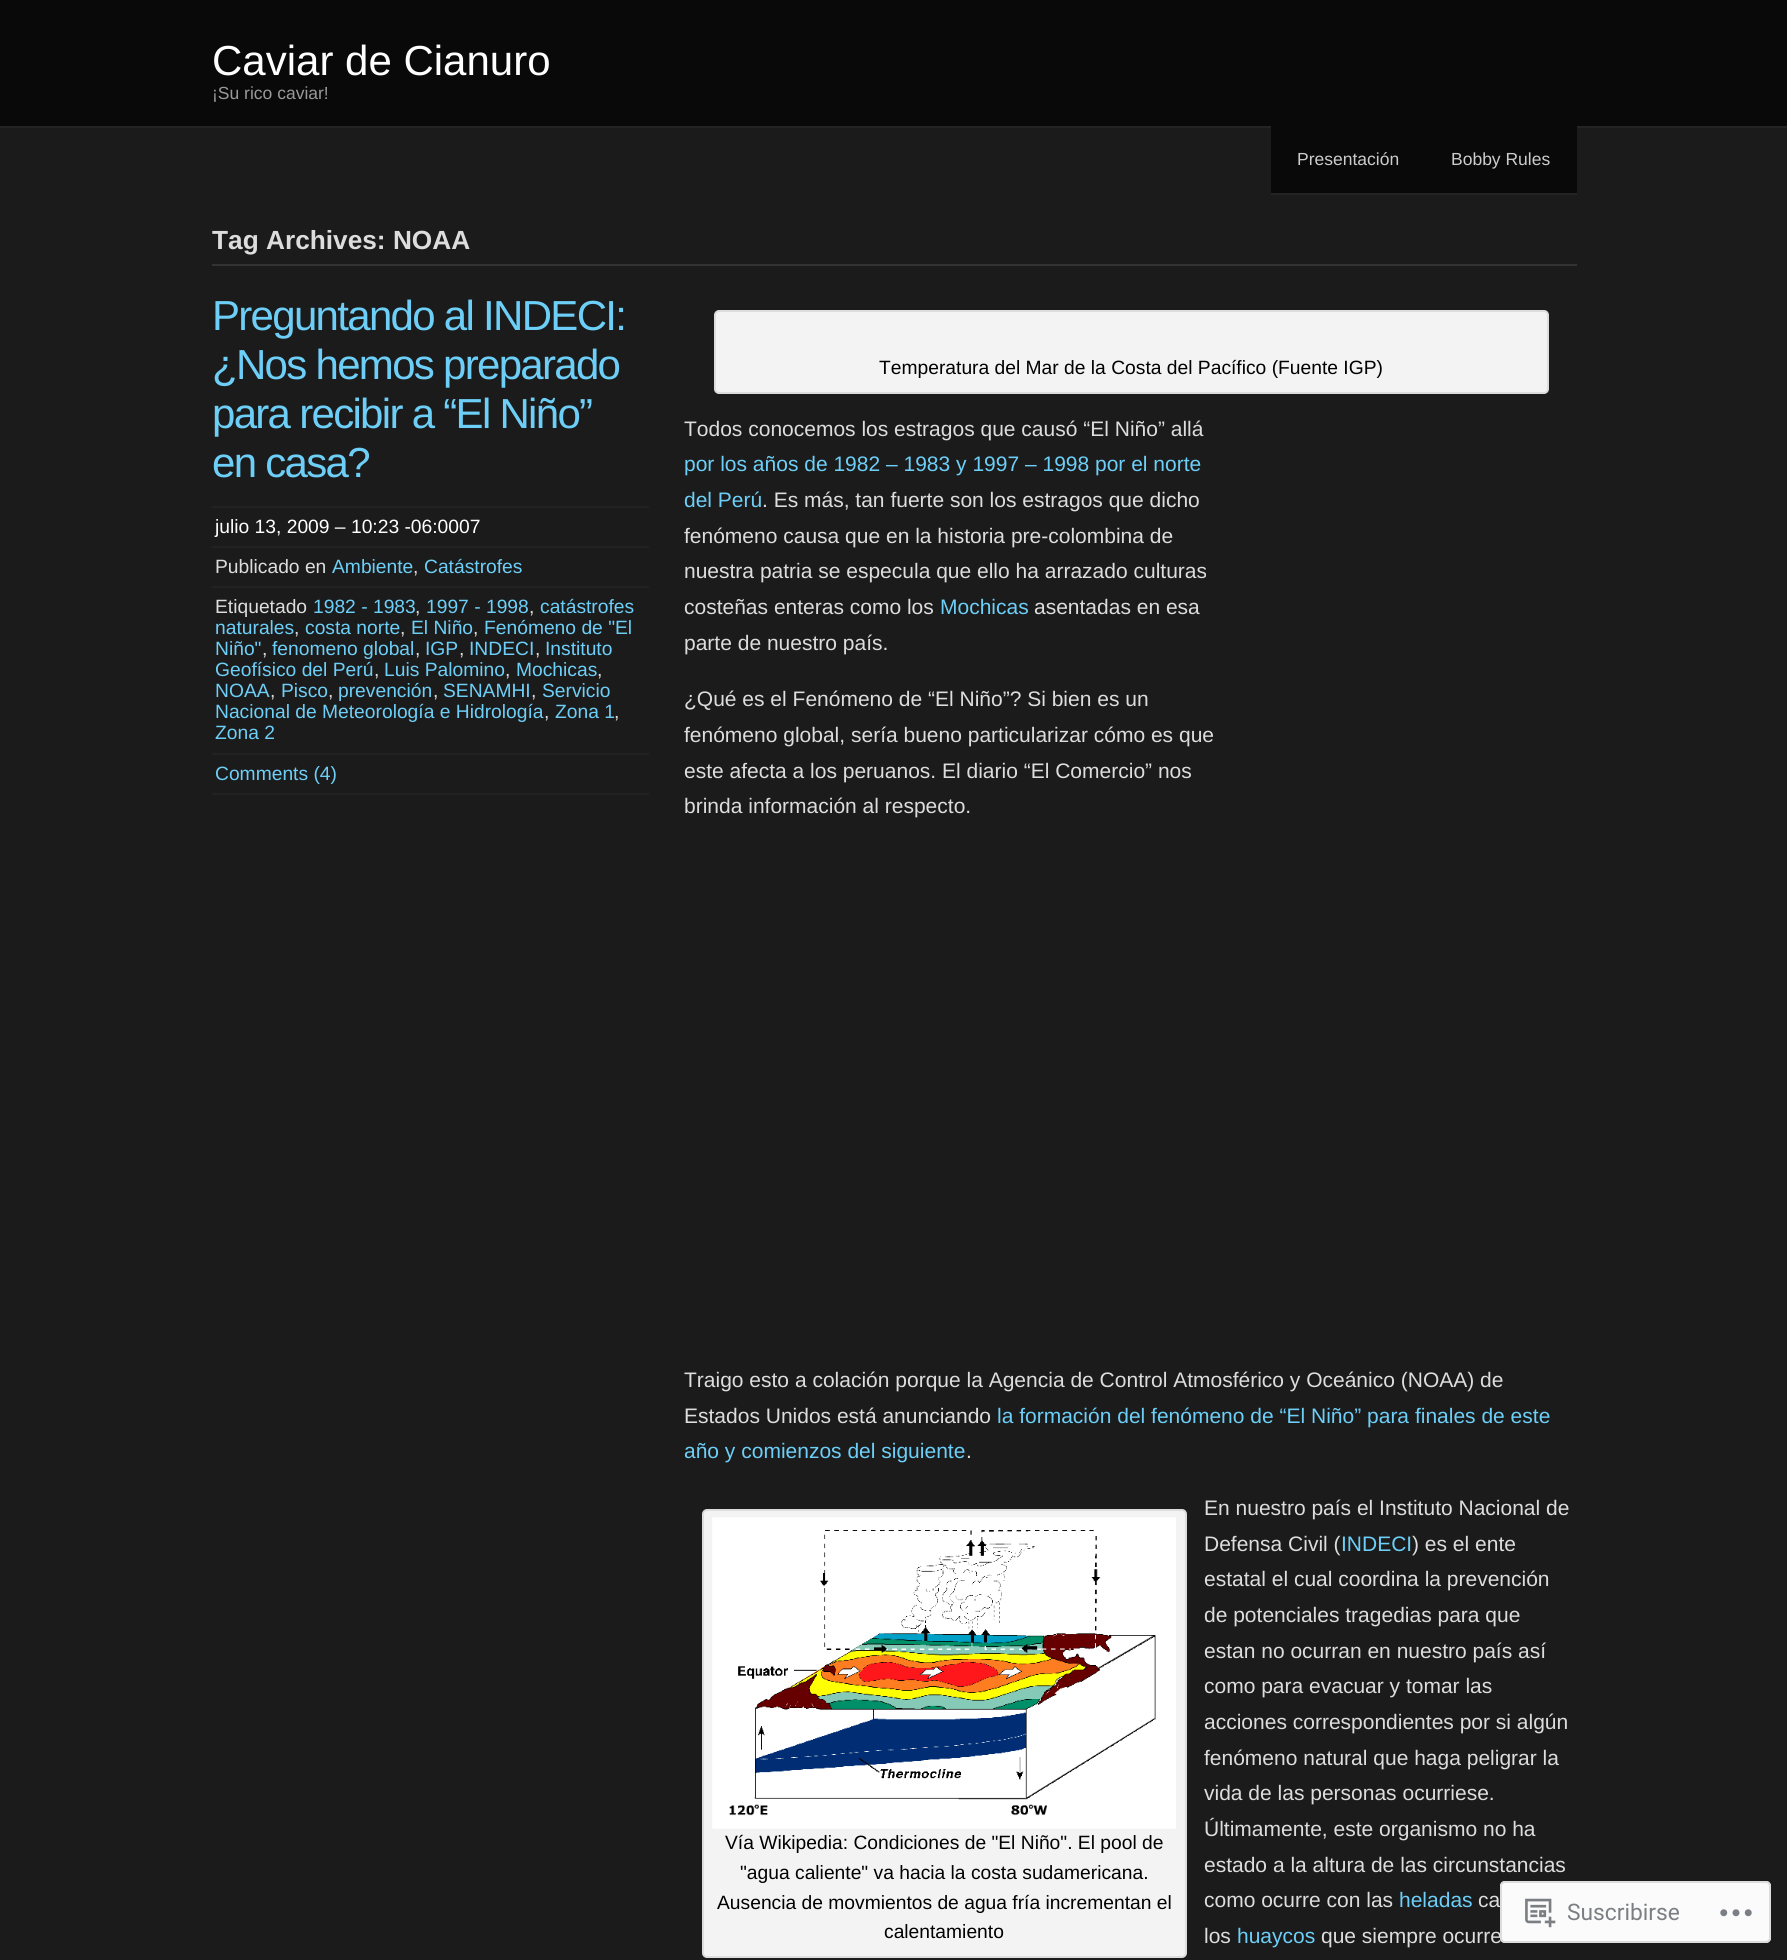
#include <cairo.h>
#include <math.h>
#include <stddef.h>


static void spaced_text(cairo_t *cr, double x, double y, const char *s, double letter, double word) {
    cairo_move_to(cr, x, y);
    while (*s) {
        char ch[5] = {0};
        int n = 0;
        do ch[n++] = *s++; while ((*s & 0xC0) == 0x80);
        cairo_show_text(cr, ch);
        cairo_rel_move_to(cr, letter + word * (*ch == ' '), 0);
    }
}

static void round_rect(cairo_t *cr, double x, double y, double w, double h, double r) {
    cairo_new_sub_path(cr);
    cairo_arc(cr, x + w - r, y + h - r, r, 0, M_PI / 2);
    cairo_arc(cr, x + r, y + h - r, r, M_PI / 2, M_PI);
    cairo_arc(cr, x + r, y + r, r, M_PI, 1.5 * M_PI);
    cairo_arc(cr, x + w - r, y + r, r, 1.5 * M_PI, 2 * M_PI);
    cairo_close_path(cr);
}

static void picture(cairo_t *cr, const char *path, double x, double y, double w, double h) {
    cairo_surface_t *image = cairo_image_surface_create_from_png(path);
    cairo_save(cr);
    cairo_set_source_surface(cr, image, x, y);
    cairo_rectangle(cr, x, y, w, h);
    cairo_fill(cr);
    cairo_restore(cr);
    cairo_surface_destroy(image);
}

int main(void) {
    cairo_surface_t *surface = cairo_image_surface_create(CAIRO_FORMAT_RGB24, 1787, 1960);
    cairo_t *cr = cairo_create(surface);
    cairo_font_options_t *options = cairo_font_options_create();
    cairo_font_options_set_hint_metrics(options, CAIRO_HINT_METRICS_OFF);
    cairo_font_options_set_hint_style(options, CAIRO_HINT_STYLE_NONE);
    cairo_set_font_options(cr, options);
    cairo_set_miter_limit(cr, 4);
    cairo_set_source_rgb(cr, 0.106, 0.106, 0.106);
    cairo_paint(cr);
    cairo_set_source_rgb(cr, 0.039, 0.039, 0.039);
    cairo_rectangle(cr, 0, 0, 1787, 126);
    cairo_fill(cr);
    cairo_set_source_rgb(cr, 0.141, 0.141, 0.141);
    cairo_rectangle(cr, 0, 126, 1787, 2);
    cairo_fill(cr);
    cairo_select_font_face(cr, "Liberation Sans", CAIRO_FONT_SLANT_NORMAL, CAIRO_FONT_WEIGHT_NORMAL);
    cairo_set_font_size(cr, 42);
    cairo_set_source_rgb(cr, 1, 1, 1);
    cairo_move_to(cr, 212, 75);
    cairo_show_text(cr, "Caviar de Cianuro");
    cairo_set_font_size(cr, 17.5);
    cairo_set_source_rgb(cr, 0.6, 0.6, 0.6);
    cairo_move_to(cr, 212, 99);
    cairo_show_text(cr, "¡Su rico caviar!");
    cairo_set_source_rgb(cr, 0.039, 0.039, 0.039);
    cairo_rectangle(cr, 1271, 126, 306, 67);
    cairo_fill(cr);
    cairo_set_source_rgb(cr, 0.141, 0.141, 0.141);
    cairo_rectangle(cr, 1271, 193, 306, 2);
    cairo_fill(cr);
    cairo_set_source_rgb(cr, 0.8, 0.8, 0.8);
    cairo_move_to(cr, 1297, 165);
    cairo_show_text(cr, "Presentación");
    cairo_move_to(cr, 1451, 165);
    cairo_show_text(cr, "Bobby Rules");
    cairo_set_source_rgb(cr, 0.2, 0.2, 0.2);
    cairo_rectangle(cr, 212, 264, 1365, 2);
    cairo_fill(cr);
    cairo_select_font_face(cr, "Liberation Sans", CAIRO_FONT_SLANT_NORMAL, CAIRO_FONT_WEIGHT_BOLD);
    cairo_set_font_size(cr, 26.25);
    cairo_set_source_rgb(cr, 0.867, 0.867, 0.867);
    cairo_move_to(cr, 212, 249);
    cairo_show_text(cr, "Tag Archives: NOAA");
    cairo_select_font_face(cr, "Liberation Sans", CAIRO_FONT_SLANT_NORMAL, CAIRO_FONT_WEIGHT_NORMAL);
    cairo_set_font_size(cr, 42);
    cairo_set_source_rgb(cr, 0.427, 0.812, 0.965);
    spaced_text(cr, 212, 330, "Preguntando al INDECI:", -1.7, 0);
    spaced_text(cr, 212, 379, "¿Nos hemos preparado", -1.7, 0);
    spaced_text(cr, 212, 428, "para recibir a “El Niño”", -1.7, 0);
    spaced_text(cr, 212, 477, "en casa?", -1.7, 0);
    cairo_set_source_rgb(cr, 0.133, 0.133, 0.133);
    cairo_rectangle(cr, 212, 506, 437, 2);
    cairo_fill(cr);
    cairo_rectangle(cr, 212, 546, 437, 2);
    cairo_fill(cr);
    cairo_set_font_size(cr, 19.25);
    cairo_set_source_rgb(cr, 1, 1, 1);
    cairo_move_to(cr, 215, 533);
    cairo_show_text(cr, "julio 13, 2009 – 10:23 -06:0007");
    cairo_set_source_rgb(cr, 0.133, 0.133, 0.133);
    cairo_rectangle(cr, 212, 586, 437, 2);
    cairo_fill(cr);
    cairo_set_source_rgb(cr, 0.867, 0.867, 0.867);
    cairo_move_to(cr, 215, 573);
    cairo_show_text(cr, "Publicado en");
    cairo_set_source_rgb(cr, 0.427, 0.812, 0.965);
    cairo_move_to(cr, 332, 573);
    cairo_show_text(cr, "Ambiente");
    cairo_set_source_rgb(cr, 0.867, 0.867, 0.867);
    cairo_move_to(cr, 413, 573);
    cairo_show_text(cr, ",");
    cairo_set_source_rgb(cr, 0.427, 0.812, 0.965);
    cairo_move_to(cr, 424, 573);
    cairo_show_text(cr, "Catástrofes");
    cairo_set_source_rgb(cr, 0.133, 0.133, 0.133);
    cairo_rectangle(cr, 212, 753, 437, 2);
    cairo_fill(cr);
    cairo_set_source_rgb(cr, 0.867, 0.867, 0.867);
    cairo_move_to(cr, 215, 613);
    cairo_show_text(cr, "Etiquetado");
    cairo_set_source_rgb(cr, 0.427, 0.812, 0.965);
    cairo_move_to(cr, 313, 613);
    cairo_show_text(cr, "1982 - 1983");
    cairo_set_source_rgb(cr, 0.867, 0.867, 0.867);
    cairo_move_to(cr, 415, 613);
    cairo_show_text(cr, ",");
    cairo_set_source_rgb(cr, 0.427, 0.812, 0.965);
    cairo_move_to(cr, 426, 613);
    cairo_show_text(cr, "1997 - 1998");
    cairo_set_source_rgb(cr, 0.867, 0.867, 0.867);
    cairo_move_to(cr, 529, 613);
    cairo_show_text(cr, ",");
    cairo_set_source_rgb(cr, 0.427, 0.812, 0.965);
    cairo_move_to(cr, 540, 613);
    cairo_show_text(cr, "catástrofes");
    cairo_move_to(cr, 215, 634);
    cairo_show_text(cr, "naturales");
    cairo_set_source_rgb(cr, 0.867, 0.867, 0.867);
    cairo_move_to(cr, 294, 634);
    cairo_show_text(cr, ",");
    cairo_set_source_rgb(cr, 0.427, 0.812, 0.965);
    cairo_move_to(cr, 305, 634);
    cairo_show_text(cr, "costa norte");
    cairo_set_source_rgb(cr, 0.867, 0.867, 0.867);
    cairo_move_to(cr, 400, 634);
    cairo_show_text(cr, ",");
    cairo_set_source_rgb(cr, 0.427, 0.812, 0.965);
    cairo_move_to(cr, 411, 634);
    cairo_show_text(cr, "El Niño");
    cairo_set_source_rgb(cr, 0.867, 0.867, 0.867);
    cairo_move_to(cr, 473, 634);
    cairo_show_text(cr, ",");
    cairo_set_source_rgb(cr, 0.427, 0.812, 0.965);
    cairo_move_to(cr, 484, 634);
    cairo_show_text(cr, "Fenómeno de \"El");
    cairo_move_to(cr, 215, 655);
    cairo_show_text(cr, "Niño\"");
    cairo_set_source_rgb(cr, 0.867, 0.867, 0.867);
    cairo_move_to(cr, 262, 655);
    cairo_show_text(cr, ",");
    cairo_set_source_rgb(cr, 0.427, 0.812, 0.965);
    cairo_move_to(cr, 272, 655);
    cairo_show_text(cr, "fenomeno global");
    cairo_set_source_rgb(cr, 0.867, 0.867, 0.867);
    cairo_move_to(cr, 415, 655);
    cairo_show_text(cr, ",");
    cairo_set_source_rgb(cr, 0.427, 0.812, 0.965);
    cairo_move_to(cr, 425, 655);
    cairo_show_text(cr, "IGP");
    cairo_set_source_rgb(cr, 0.867, 0.867, 0.867);
    cairo_move_to(cr, 459, 655);
    cairo_show_text(cr, ",");
    cairo_set_source_rgb(cr, 0.427, 0.812, 0.965);
    cairo_move_to(cr, 469, 655);
    cairo_show_text(cr, "INDECI");
    cairo_set_source_rgb(cr, 0.867, 0.867, 0.867);
    cairo_move_to(cr, 535, 655);
    cairo_show_text(cr, ",");
    cairo_set_source_rgb(cr, 0.427, 0.812, 0.965);
    cairo_move_to(cr, 545, 655);
    cairo_show_text(cr, "Instituto");
    cairo_move_to(cr, 215, 676);
    cairo_show_text(cr, "Geofísico del Perú");
    cairo_set_source_rgb(cr, 0.867, 0.867, 0.867);
    cairo_move_to(cr, 374, 676);
    cairo_show_text(cr, ",");
    cairo_set_source_rgb(cr, 0.427, 0.812, 0.965);
    cairo_move_to(cr, 384, 676);
    cairo_show_text(cr, "Luis Palomino");
    cairo_set_source_rgb(cr, 0.867, 0.867, 0.867);
    cairo_move_to(cr, 505, 676);
    cairo_show_text(cr, ",");
    cairo_set_source_rgb(cr, 0.427, 0.812, 0.965);
    cairo_move_to(cr, 516, 676);
    cairo_show_text(cr, "Mochicas");
    cairo_set_source_rgb(cr, 0.867, 0.867, 0.867);
    cairo_move_to(cr, 597, 676);
    cairo_show_text(cr, ",");
    cairo_set_source_rgb(cr, 0.427, 0.812, 0.965);
    cairo_move_to(cr, 215, 697);
    cairo_show_text(cr, "NOAA");
    cairo_set_source_rgb(cr, 0.867, 0.867, 0.867);
    cairo_move_to(cr, 270, 697);
    cairo_show_text(cr, ",");
    cairo_set_source_rgb(cr, 0.427, 0.812, 0.965);
    cairo_move_to(cr, 281, 697);
    cairo_show_text(cr, "Pisco");
    cairo_set_source_rgb(cr, 0.867, 0.867, 0.867);
    cairo_move_to(cr, 328, 697);
    cairo_show_text(cr, ",");
    cairo_set_source_rgb(cr, 0.427, 0.812, 0.965);
    cairo_move_to(cr, 338, 697);
    cairo_show_text(cr, "prevención");
    cairo_set_source_rgb(cr, 0.867, 0.867, 0.867);
    cairo_move_to(cr, 433, 697);
    cairo_show_text(cr, ",");
    cairo_set_source_rgb(cr, 0.427, 0.812, 0.965);
    cairo_move_to(cr, 443, 697);
    cairo_show_text(cr, "SENAMHI");
    cairo_set_source_rgb(cr, 0.867, 0.867, 0.867);
    cairo_move_to(cr, 531, 697);
    cairo_show_text(cr, ",");
    cairo_set_source_rgb(cr, 0.427, 0.812, 0.965);
    cairo_move_to(cr, 542, 697);
    cairo_show_text(cr, "Servicio");
    cairo_move_to(cr, 215, 718);
    cairo_show_text(cr, "Nacional de Meteorología e Hidrología");
    cairo_set_source_rgb(cr, 0.867, 0.867, 0.867);
    cairo_move_to(cr, 544, 718);
    cairo_show_text(cr, ",");
    cairo_set_source_rgb(cr, 0.427, 0.812, 0.965);
    cairo_move_to(cr, 555, 718);
    cairo_show_text(cr, "Zona 1");
    cairo_set_source_rgb(cr, 0.867, 0.867, 0.867);
    cairo_move_to(cr, 614, 718);
    cairo_show_text(cr, ",");
    cairo_set_source_rgb(cr, 0.427, 0.812, 0.965);
    cairo_move_to(cr, 215, 739);
    cairo_show_text(cr, "Zona 2");
    cairo_set_source_rgb(cr, 0.133, 0.133, 0.133);
    cairo_rectangle(cr, 212, 793, 437, 2);
    cairo_fill(cr);
    cairo_set_source_rgb(cr, 0.427, 0.812, 0.965);
    cairo_move_to(cr, 215, 780);
    cairo_show_text(cr, "Comments (4)");
    cairo_set_source_rgb(cr, 0.953, 0.953, 0.953);
    round_rect(cr, 715, 311, 833, 82, 4);
    cairo_fill_preserve(cr);
    cairo_set_source_rgb(cr, 0.867, 0.867, 0.867);
    cairo_stroke(cr);
    cairo_set_source_rgb(cr, 0, 0, 0);
    cairo_move_to(cr, 879, 374);
    cairo_show_text(cr, "Temperatura del Mar de la Costa del Pacífico (Fuente IGP)");
    cairo_set_font_size(cr, 21);
    cairo_set_source_rgb(cr, 0.867, 0.867, 0.867);
    cairo_move_to(cr, 684, 436);
    cairo_show_text(cr, "Todos conocemos los estragos que causó “El Niño” allá");
    cairo_set_source_rgb(cr, 0.427, 0.812, 0.965);
    cairo_move_to(cr, 684, 471);
    cairo_show_text(cr, "por los años de 1982 – 1983 y 1997 – 1998 por el norte");
    cairo_move_to(cr, 684, 507);
    cairo_show_text(cr, "del Perú");
    cairo_set_source_rgb(cr, 0.867, 0.867, 0.867);
    cairo_move_to(cr, 762, 507);
    cairo_show_text(cr, ". Es más, tan fuerte son los estragos que dicho");
    cairo_move_to(cr, 684, 543);
    cairo_show_text(cr, "fenómeno causa que en la historia pre-colombina de");
    cairo_move_to(cr, 684, 578);
    cairo_show_text(cr, "nuestra patria se especula que ello ha arrazado culturas");
    cairo_move_to(cr, 684, 614);
    cairo_show_text(cr, "costeñas enteras como los");
    cairo_set_source_rgb(cr, 0.427, 0.812, 0.965);
    cairo_move_to(cr, 940, 614);
    cairo_show_text(cr, "Mochicas");
    cairo_set_source_rgb(cr, 0.867, 0.867, 0.867);
    cairo_move_to(cr, 1034, 614);
    cairo_show_text(cr, "asentadas en esa");
    cairo_move_to(cr, 684, 650);
    cairo_show_text(cr, "parte de nuestro país.");
    cairo_move_to(cr, 684, 706);
    cairo_show_text(cr, "¿Qué es el Fenómeno de “El Niño”? Si bien es un");
    cairo_move_to(cr, 684, 742);
    cairo_show_text(cr, "fenómeno global, sería bueno particularizar cómo es que");
    cairo_move_to(cr, 684, 778);
    cairo_show_text(cr, "este afecta a los peruanos. El diario “El Comercio” nos");
    cairo_move_to(cr, 684, 813);
    cairo_show_text(cr, "brinda información al respecto.");
    cairo_move_to(cr, 684, 1387);
    cairo_show_text(cr, "Traigo esto a colación porque la Agencia de Control Atmosférico y Oceánico (NOAA) de");
    cairo_move_to(cr, 684, 1423);
    cairo_show_text(cr, "Estados Unidos está anunciando");
    cairo_set_source_rgb(cr, 0.427, 0.812, 0.965);
    cairo_move_to(cr, 997, 1423);
    cairo_show_text(cr, "la formación del fenómeno de “El Niño” para finales de este");
    cairo_move_to(cr, 684, 1458);
    cairo_show_text(cr, "año y comienzos del siguiente");
    cairo_set_source_rgb(cr, 0.867, 0.867, 0.867);
    cairo_move_to(cr, 966, 1458);
    cairo_show_text(cr, ".");
    cairo_set_source_rgb(cr, 0.953, 0.953, 0.953);
    round_rect(cr, 703, 1510, 483, 447, 4);
    cairo_fill_preserve(cr);
    cairo_set_source_rgb(cr, 0.867, 0.867, 0.867);
    cairo_stroke(cr);
    picture(cr, "img1.png", 712, 1517, 464, 312);
    cairo_set_font_size(cr, 19.25);
    cairo_set_source_rgb(cr, 0, 0, 0);
    cairo_move_to(cr, 725, 1849);
    cairo_show_text(cr, "Vía Wikipedia: Condiciones de \"El Niño\". El pool de");
    cairo_move_to(cr, 740, 1879);
    cairo_show_text(cr, "\"agua caliente\" va hacia la costa sudamericana.");
    cairo_move_to(cr, 717, 1909);
    cairo_show_text(cr, "Ausencia de movmientos de agua fría incrementan el");
    cairo_move_to(cr, 884, 1938);
    cairo_show_text(cr, "calentamiento");
    cairo_set_font_size(cr, 21);
    cairo_set_source_rgb(cr, 0.867, 0.867, 0.867);
    cairo_move_to(cr, 1204, 1515);
    cairo_show_text(cr, "En nuestro país el Instituto Nacional de");
    cairo_move_to(cr, 1204, 1551);
    cairo_show_text(cr, "Defensa Civil (");
    cairo_set_source_rgb(cr, 0.427, 0.812, 0.965);
    cairo_move_to(cr, 1341, 1551);
    cairo_show_text(cr, "INDECI");
    cairo_set_source_rgb(cr, 0.867, 0.867, 0.867);
    cairo_move_to(cr, 1412, 1551);
    cairo_show_text(cr, ") es el ente");
    cairo_move_to(cr, 1204, 1586);
    cairo_show_text(cr, "estatal el cual coordina la prevención");
    cairo_move_to(cr, 1204, 1622);
    cairo_show_text(cr, "de potenciales tragedias para que");
    cairo_move_to(cr, 1204, 1658);
    cairo_show_text(cr, "estan no ocurran en nuestro país así");
    cairo_move_to(cr, 1204, 1693);
    cairo_show_text(cr, "como para evacuar y tomar las");
    cairo_move_to(cr, 1204, 1729);
    cairo_show_text(cr, "acciones correspondientes por si algún");
    cairo_move_to(cr, 1204, 1765);
    cairo_show_text(cr, "fenómeno natural que haga peligrar la");
    cairo_move_to(cr, 1204, 1800);
    cairo_show_text(cr, "vida de las personas ocurriese.");
    cairo_move_to(cr, 1204, 1836);
    cairo_show_text(cr, "Últimamente, este organismo no ha");
    cairo_move_to(cr, 1204, 1872);
    cairo_show_text(cr, "estado a la altura de las circunstancias");
    cairo_move_to(cr, 1204, 1907);
    cairo_show_text(cr, "como ocurre con las");
    cairo_set_source_rgb(cr, 0.427, 0.812, 0.965);
    cairo_move_to(cr, 1399, 1907);
    cairo_show_text(cr, "heladas");
    cairo_set_source_rgb(cr, 0.867, 0.867, 0.867);
    cairo_move_to(cr, 1478, 1907);
    cairo_show_text(cr, "ca");
    cairo_move_to(cr, 1204, 1943);
    cairo_show_text(cr, "los");
    cairo_set_source_rgb(cr, 0.427, 0.812, 0.965);
    cairo_move_to(cr, 1237, 1943);
    cairo_show_text(cr, "huaycos");
    cairo_set_source_rgb(cr, 0.867, 0.867, 0.867);
    cairo_move_to(cr, 1321, 1943);
    cairo_show_text(cr, "que siempre ocurre");
    cairo_set_source_rgba(cr, 1, 1, 1, 0.98);
    round_rect(cr, 1500, 1881, 271, 62, 5);
    cairo_fill(cr);
    round_rect(cr, 1501, 1882, 269, 60, 4);
    cairo_set_source_rgba(cr, 0.863, 0.863, 0.871, 0.98);
    cairo_stroke(cr);
    picture(cr, "img2.png", 1525, 1898, 31, 30);
    cairo_select_font_face(cr, "Roboto", CAIRO_FONT_SLANT_NORMAL, CAIRO_FONT_WEIGHT_NORMAL);
    cairo_set_font_size(cr, 22.75);
    cairo_set_source_rgb(cr, 0.482, 0.498, 0.518);
    cairo_move_to(cr, 1567, 1920);
    cairo_show_text(cr, "Suscribirse");
    picture(cr, "img3.png", 1720, 1909, 32, 8);
    cairo_surface_write_to_png(surface, "page.png");
    cairo_font_options_destroy(options);
    cairo_destroy(cr);
    cairo_surface_destroy(surface);
    return 0;
}
